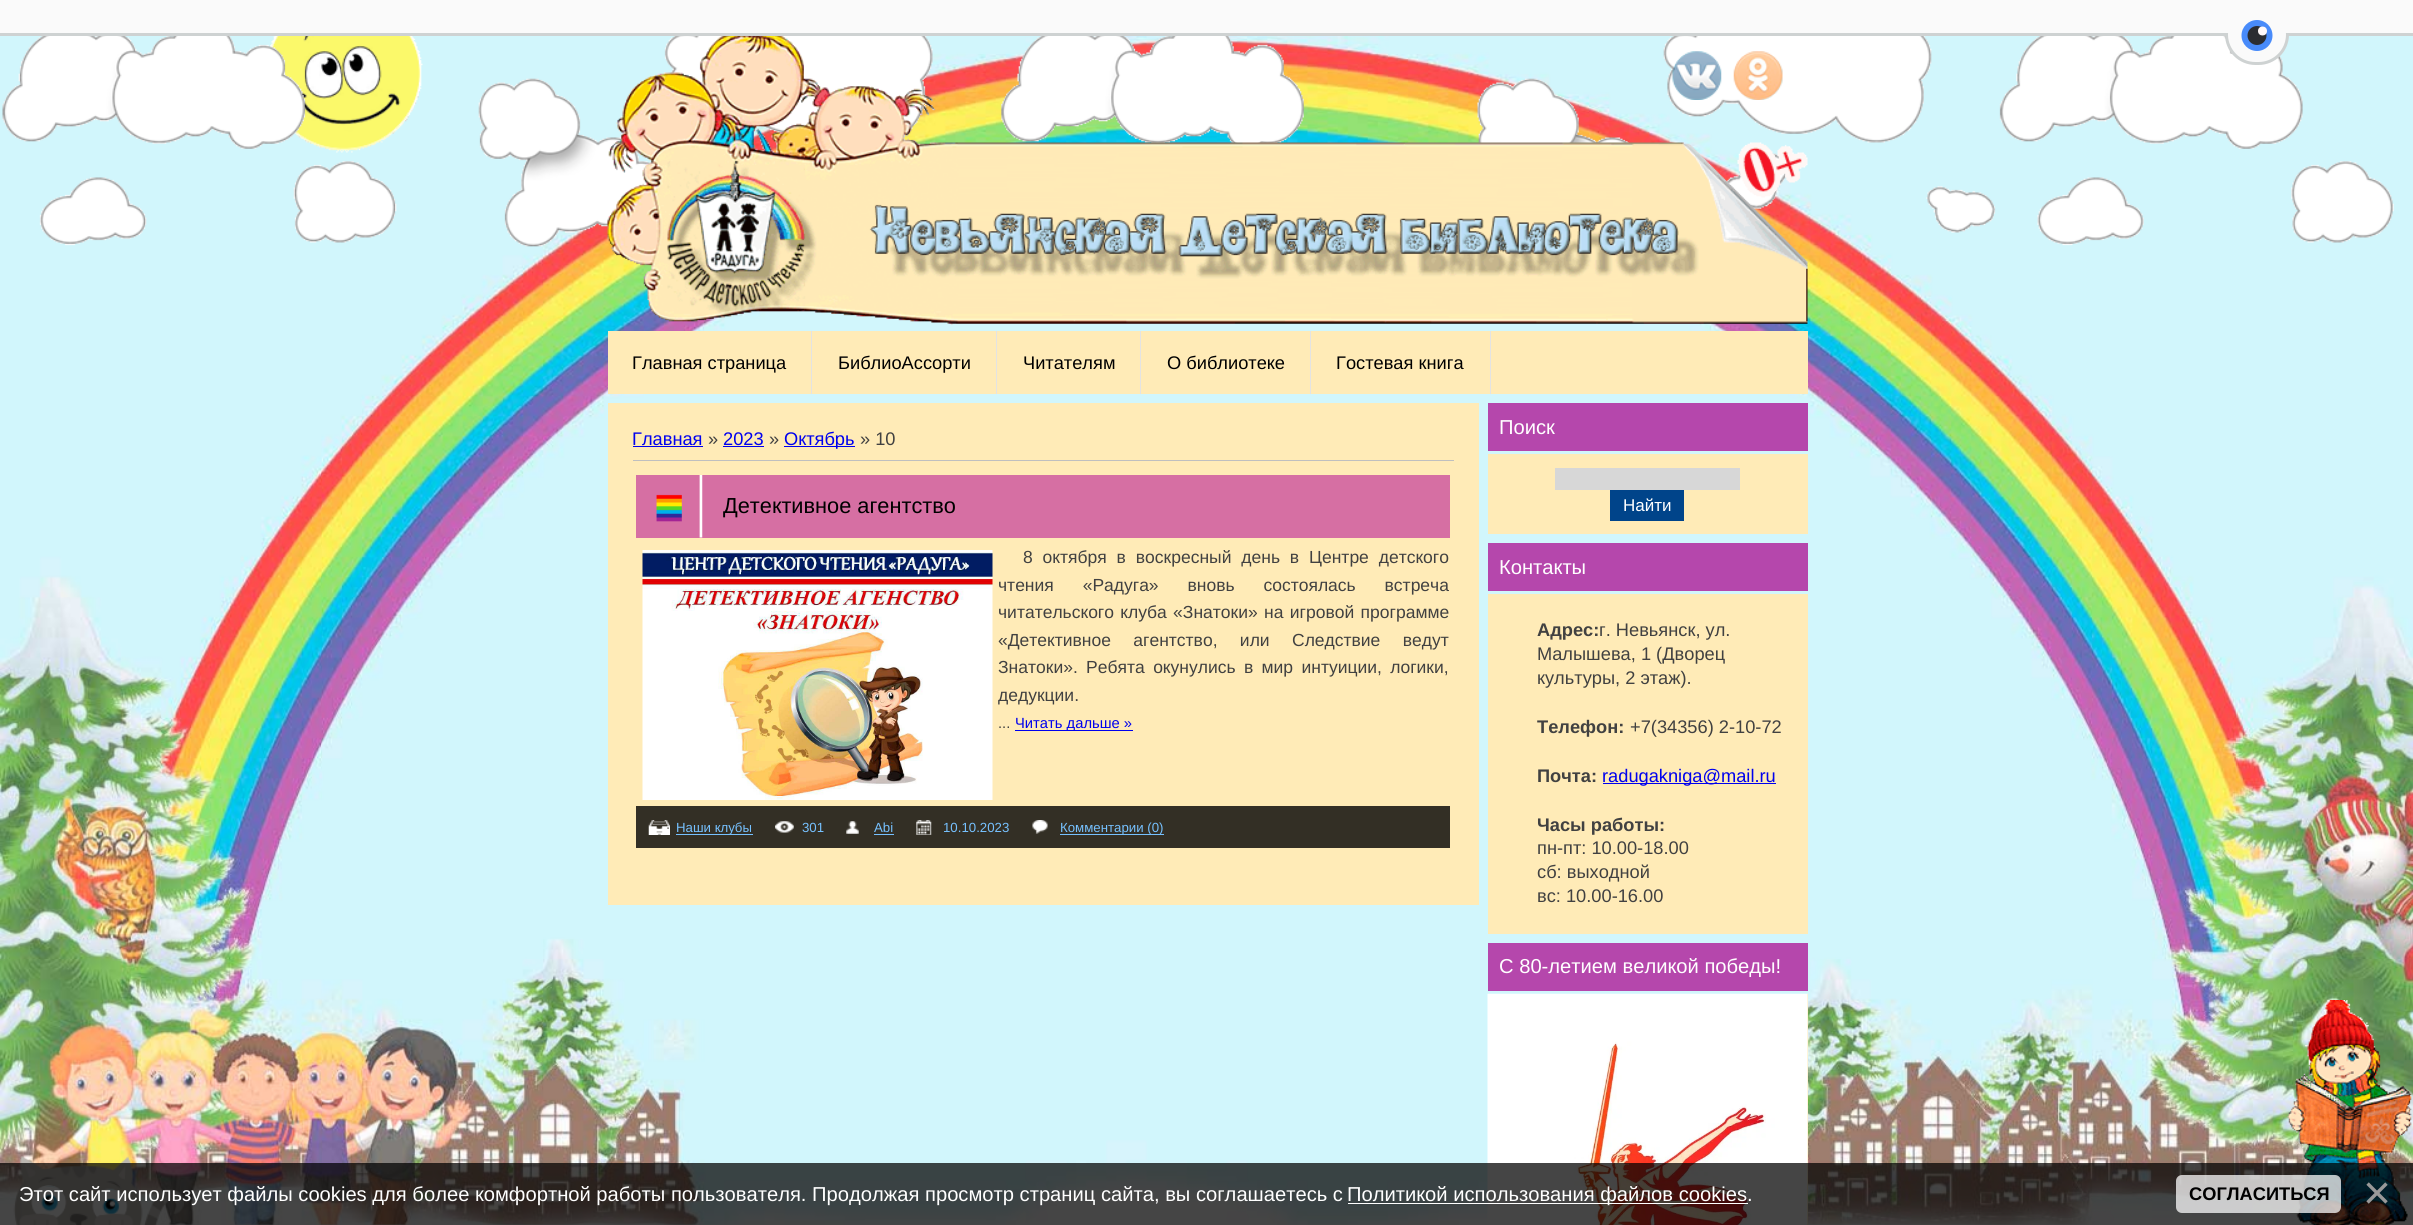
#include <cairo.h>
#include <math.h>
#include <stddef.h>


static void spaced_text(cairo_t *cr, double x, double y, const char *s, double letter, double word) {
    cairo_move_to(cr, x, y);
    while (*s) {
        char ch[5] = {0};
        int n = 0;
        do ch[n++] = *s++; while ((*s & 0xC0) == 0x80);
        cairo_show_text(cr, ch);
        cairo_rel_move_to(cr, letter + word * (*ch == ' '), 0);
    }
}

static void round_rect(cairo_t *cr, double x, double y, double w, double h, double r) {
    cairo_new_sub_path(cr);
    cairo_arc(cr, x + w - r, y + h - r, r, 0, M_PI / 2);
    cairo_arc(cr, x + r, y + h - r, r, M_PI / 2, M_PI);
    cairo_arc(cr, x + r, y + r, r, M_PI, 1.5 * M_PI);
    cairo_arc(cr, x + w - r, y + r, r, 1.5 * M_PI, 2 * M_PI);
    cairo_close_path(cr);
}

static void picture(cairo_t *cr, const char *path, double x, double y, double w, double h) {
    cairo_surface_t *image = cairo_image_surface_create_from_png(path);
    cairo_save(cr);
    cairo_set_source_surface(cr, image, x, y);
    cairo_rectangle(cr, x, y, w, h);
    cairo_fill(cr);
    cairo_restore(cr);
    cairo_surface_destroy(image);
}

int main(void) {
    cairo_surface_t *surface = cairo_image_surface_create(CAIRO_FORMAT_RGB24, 2413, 1225);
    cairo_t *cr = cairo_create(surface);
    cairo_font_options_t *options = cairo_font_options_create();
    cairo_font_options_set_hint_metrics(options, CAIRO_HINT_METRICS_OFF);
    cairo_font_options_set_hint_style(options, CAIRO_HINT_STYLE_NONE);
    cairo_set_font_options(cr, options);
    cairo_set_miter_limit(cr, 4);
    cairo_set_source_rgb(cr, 1, 1, 1);
    cairo_paint(cr);
    picture(cr, "img1.png", 0, 36, 2413, 1189);
    cairo_set_source_rgb(cr, 0.98, 0.98, 0.98);
    cairo_rectangle(cr, 0, 0, 2413, 33);
    cairo_fill(cr);
    cairo_set_source_rgb(cr, 0.808, 0.824, 0.824);
    cairo_rectangle(cr, 0, 33, 2413, 3);
    cairo_fill(cr);
    picture(cr, "img3.png", 269, 36, 154, 117);
    picture(cr, "img2.png", 2, 36, 2392, 211);
    cairo_save(cr);
    cairo_rectangle(cr, 2225, 19, 64, 62);
    cairo_clip(cr);
    cairo_set_source_rgb(cr, 0.98, 0.98, 0.98);
    round_rect(cr, 2226.5, 5.5, 61, 58, 29);
    cairo_fill_preserve(cr);
    cairo_set_source_rgb(cr, 0.808, 0.824, 0.824);
    cairo_set_line_width(cr, 3);
    cairo_stroke(cr);
    cairo_restore(cr);
    cairo_set_source_rgb(cr, 0.98, 0.98, 0.98);
    cairo_rectangle(cr, 2225, 19, 64, 14);
    cairo_fill(cr);
    cairo_set_source_rgb(cr, 0.282, 0.545, 0.98);
    cairo_arc(cr, 2257, 35.5, 15.5, 0, 2 * M_PI);
    cairo_fill(cr);
    cairo_set_source_rgb(cr, 0.169, 0.176, 0.192);
    cairo_arc(cr, 2257, 35.5, 9.5, 0, 2 * M_PI);
    cairo_fill(cr);
    cairo_set_source_rgb(cr, 1, 0.973, 0.973);
    cairo_arc(cr, 2262.5, 31, 4.5, 0, 2 * M_PI);
    cairo_fill(cr);
    picture(cr, "img4.png", 607, 36, 1201, 289);
    picture(cr, "img5.png", 1672, 51, 50, 49);
    picture(cr, "img6.png", 1733, 51, 50, 49);
    cairo_set_source_rgb(cr, 1, 0.918, 0.718);
    cairo_rectangle(cr, 608, 331, 1200, 63);
    cairo_fill(cr);
    cairo_select_font_face(cr, "Liberation Sans", CAIRO_FONT_SLANT_NORMAL, CAIRO_FONT_WEIGHT_NORMAL);
    cairo_set_font_size(cr, 18.25);
    cairo_set_source_rgb(cr, 0, 0, 0);
    cairo_move_to(cr, 632, 369);
    cairo_show_text(cr, "Главная страница");
    cairo_set_source_rgb(cr, 0.89, 0.89, 0.89);
    cairo_rectangle(cr, 811, 331, 1, 63);
    cairo_fill(cr);
    cairo_set_source_rgb(cr, 0, 0, 0);
    cairo_move_to(cr, 838, 369);
    cairo_show_text(cr, "БиблиоАссорти");
    cairo_set_source_rgb(cr, 0.89, 0.89, 0.89);
    cairo_rectangle(cr, 996, 331, 1, 63);
    cairo_fill(cr);
    cairo_set_source_rgb(cr, 0, 0, 0);
    cairo_move_to(cr, 1023, 369);
    cairo_show_text(cr, "Читателям");
    cairo_set_source_rgb(cr, 0.89, 0.89, 0.89);
    cairo_rectangle(cr, 1140, 331, 1, 63);
    cairo_fill(cr);
    cairo_set_source_rgb(cr, 0, 0, 0);
    cairo_move_to(cr, 1167, 369);
    cairo_show_text(cr, "О библиотеке");
    cairo_set_source_rgb(cr, 0.89, 0.89, 0.89);
    cairo_rectangle(cr, 1490, 331, 1, 63);
    cairo_fill(cr);
    cairo_rectangle(cr, 1310, 331, 1, 63);
    cairo_fill(cr);
    cairo_set_source_rgb(cr, 0, 0, 0);
    cairo_move_to(cr, 1336, 369);
    cairo_show_text(cr, "Гостевая книга");
    cairo_set_source_rgb(cr, 1, 0.918, 0.718);
    cairo_rectangle(cr, 608, 403, 871, 502);
    cairo_fill(cr);
    cairo_set_source_rgb(cr, 0, 0, 0.933);
    cairo_move_to(cr, 632, 445);
    cairo_show_text(cr, "Главная");
    cairo_rectangle(cr, 633, 446, 70, 1);
    cairo_fill(cr);
    cairo_set_source_rgb(cr, 0.255, 0.255, 0.255);
    cairo_move_to(cr, 708, 445);
    cairo_show_text(cr, "»");
    cairo_set_source_rgb(cr, 0, 0, 0.933);
    cairo_move_to(cr, 723, 445);
    cairo_show_text(cr, "2023");
    cairo_rectangle(cr, 723, 446, 41, 1);
    cairo_fill(cr);
    cairo_set_source_rgb(cr, 0.255, 0.255, 0.255);
    cairo_move_to(cr, 769, 445);
    cairo_show_text(cr, "»");
    cairo_set_source_rgb(cr, 0, 0, 0.933);
    cairo_rectangle(cr, 784, 446, 71, 1);
    cairo_fill(cr);
    cairo_move_to(cr, 784, 445);
    cairo_show_text(cr, "Октябрь");
    cairo_set_source_rgb(cr, 0.255, 0.255, 0.255);
    cairo_move_to(cr, 860, 445);
    cairo_show_text(cr, "» 10");
    cairo_set_source_rgb(cr, 0.749, 0.749, 0.749);
    cairo_rectangle(cr, 633, 460, 821, 1);
    cairo_fill(cr);
    cairo_set_source_rgb(cr, 0.839, 0.435, 0.639);
    cairo_rectangle(cr, 636, 475, 814, 63);
    cairo_fill(cr);
    picture(cr, "img7.png", 656, 475, 47, 63);
    cairo_set_font_size(cr, 21.75);
    cairo_set_source_rgb(cr, 0, 0, 0);
    cairo_move_to(cr, 723, 513);
    cairo_show_text(cr, "Детективное агентство");
    picture(cr, "img8.png", 642, 550, 351, 250);
    cairo_set_font_size(cr, 17.5);
    cairo_set_source_rgb(cr, 0.255, 0.255, 0.255);
    spaced_text(cr, 1023, 563, "8 октября в воскресный день в Центре детского", 0, 5);
    spaced_text(cr, 998, 591, "чтения «Радуга» вновь состоялась встреча", 0, 24);
    spaced_text(cr, 998, 618, "читательского клуба «Знатоки» на игровой программе", 0, 1.5);
    spaced_text(cr, 998, 646, "«Детективное агентство, или Следствие ведут", 0, 17.5);
    spaced_text(cr, 998, 673, "Знатоки». Ребята окунулись в мир интуиции, логики,", 0, 3.5);
    cairo_move_to(cr, 998, 701);
    cairo_show_text(cr, "дедукции.");
    cairo_set_font_size(cr, 14.75);
    cairo_move_to(cr, 998, 728);
    cairo_show_text(cr, "...");
    cairo_set_source_rgb(cr, 0, 0, 0.933);
    cairo_rectangle(cr, 1015, 730, 118, 1);
    cairo_fill(cr);
    cairo_move_to(cr, 1015, 728);
    cairo_show_text(cr, "Читать дальше »");
    cairo_set_source_rgb(cr, 0.2, 0.184, 0.145);
    cairo_rectangle(cr, 636, 806, 814, 42);
    cairo_fill(cr);
    picture(cr, "img9.png", 648, 820, 22, 15);
    cairo_set_source_rgb(cr, 0.463, 0.757, 1);
    cairo_rectangle(cr, 676, 834, 77, 1);
    cairo_fill(cr);
    cairo_set_font_size(cr, 13.25);
    cairo_move_to(cr, 676, 832);
    cairo_show_text(cr, "Наши клубы");
    picture(cr, "img10.png", 775, 821, 19, 12);
    cairo_move_to(cr, 802, 832);
    cairo_show_text(cr, "301");
    picture(cr, "img11.png", 846, 821, 13, 13);
    cairo_move_to(cr, 874, 832);
    cairo_show_text(cr, "Abi");
    cairo_rectangle(cr, 874, 834, 20, 1);
    cairo_fill(cr);
    picture(cr, "img12.png", 916, 820, 16, 15);
    cairo_move_to(cr, 943, 832);
    cairo_show_text(cr, "10.10.2023");
    picture(cr, "img13.png", 1032, 820, 16, 14);
    cairo_rectangle(cr, 1060, 834, 104, 1);
    cairo_fill(cr);
    cairo_move_to(cr, 1060, 832);
    cairo_show_text(cr, "Комментарии (0)");
    cairo_set_source_rgb(cr, 0.71, 0.278, 0.675);
    cairo_rectangle(cr, 1488, 403, 320, 48);
    cairo_fill(cr);
    cairo_set_font_size(cr, 20.17);
    cairo_set_source_rgb(cr, 1, 1, 1);
    cairo_move_to(cr, 1499, 434);
    cairo_show_text(cr, "Поиск");
    cairo_set_source_rgb(cr, 1, 0.918, 0.718);
    cairo_rectangle(cr, 1488, 454, 320, 80);
    cairo_fill(cr);
    cairo_set_source_rgb(cr, 0.843, 0.843, 0.843);
    cairo_rectangle(cr, 1555, 468, 185, 22);
    cairo_fill(cr);
    cairo_set_source_rgb(cr, 0, 0.267, 0.541);
    cairo_rectangle(cr, 1610, 490, 74, 31);
    cairo_fill(cr);
    cairo_set_font_size(cr, 17);
    cairo_set_source_rgb(cr, 1, 1, 1);
    cairo_move_to(cr, 1623, 511);
    cairo_show_text(cr, "Найти");
    cairo_set_source_rgb(cr, 0.71, 0.278, 0.675);
    cairo_rectangle(cr, 1488, 543, 320, 48);
    cairo_fill(cr);
    cairo_set_font_size(cr, 20.17);
    cairo_set_source_rgb(cr, 1, 1, 1);
    cairo_move_to(cr, 1499, 574);
    cairo_show_text(cr, "Контакты");
    cairo_set_source_rgb(cr, 1, 0.918, 0.718);
    cairo_rectangle(cr, 1488, 594, 320, 340);
    cairo_fill(cr);
    cairo_select_font_face(cr, "Liberation Sans", CAIRO_FONT_SLANT_NORMAL, CAIRO_FONT_WEIGHT_BOLD);
    cairo_set_font_size(cr, 18.25);
    cairo_set_source_rgb(cr, 0.255, 0.255, 0.255);
    cairo_move_to(cr, 1537, 636);
    cairo_show_text(cr, "Адрес:");
    cairo_select_font_face(cr, "Liberation Sans", CAIRO_FONT_SLANT_NORMAL, CAIRO_FONT_WEIGHT_NORMAL);
    cairo_move_to(cr, 1599, 636);
    cairo_show_text(cr, "г. Невьянск, ул.");
    cairo_move_to(cr, 1537, 660);
    cairo_show_text(cr, "Малышева, 1 (Дворец");
    cairo_move_to(cr, 1537, 684);
    cairo_show_text(cr, "культуры, 2 этаж).");
    cairo_select_font_face(cr, "Liberation Sans", CAIRO_FONT_SLANT_NORMAL, CAIRO_FONT_WEIGHT_BOLD);
    cairo_move_to(cr, 1537, 733);
    cairo_show_text(cr, "Телефон:");
    cairo_select_font_face(cr, "Liberation Sans", CAIRO_FONT_SLANT_NORMAL, CAIRO_FONT_WEIGHT_NORMAL);
    cairo_move_to(cr, 1630, 733);
    cairo_show_text(cr, "+7(34356) 2-10-72");
    cairo_select_font_face(cr, "Liberation Sans", CAIRO_FONT_SLANT_NORMAL, CAIRO_FONT_WEIGHT_BOLD);
    cairo_move_to(cr, 1537, 782);
    cairo_show_text(cr, "Почта:");
    cairo_set_source_rgb(cr, 0, 0, 0.933);
    cairo_rectangle(cr, 1603, 783, 173, 1);
    cairo_fill(cr);
    cairo_select_font_face(cr, "Liberation Sans", CAIRO_FONT_SLANT_NORMAL, CAIRO_FONT_WEIGHT_NORMAL);
    cairo_move_to(cr, 1602, 782);
    cairo_show_text(cr, "radugakniga@mail.ru");
    cairo_select_font_face(cr, "Liberation Sans", CAIRO_FONT_SLANT_NORMAL, CAIRO_FONT_WEIGHT_BOLD);
    cairo_set_source_rgb(cr, 0.255, 0.255, 0.255);
    cairo_move_to(cr, 1537, 831);
    cairo_show_text(cr, "Часы работы:");
    cairo_select_font_face(cr, "Liberation Sans", CAIRO_FONT_SLANT_NORMAL, CAIRO_FONT_WEIGHT_NORMAL);
    cairo_move_to(cr, 1537, 854);
    cairo_show_text(cr, "пн-пт: 10.00-18.00");
    cairo_move_to(cr, 1537, 878);
    cairo_show_text(cr, "сб: выходной");
    cairo_move_to(cr, 1537, 902);
    cairo_show_text(cr, "вс: 10.00-16.00");
    cairo_set_source_rgb(cr, 0.71, 0.278, 0.675);
    cairo_rectangle(cr, 1488, 943, 320, 48);
    cairo_fill(cr);
    cairo_set_font_size(cr, 20.17);
    cairo_set_source_rgb(cr, 1, 1, 1);
    cairo_move_to(cr, 1499, 973);
    cairo_show_text(cr, "С 80-летием великой победы!");
    cairo_set_source_rgb(cr, 1, 0.918, 0.718);
    cairo_rectangle(cr, 1807, 994, 1, 231);
    cairo_fill(cr);
    picture(cr, "img14.png", 1487, 993, 321, 232);
    picture(cr, "img15.png", 13, 1156, 130, 69);
    picture(cr, "img16.png", 31, 1185, 36, 33);
    picture(cr, "img17.png", 41, 1194, 17, 18);
    picture(cr, "img18.png", 92, 1188, 36, 30);
    picture(cr, "img19.png", 102, 1198, 17, 18);
    picture(cr, "img20.png", 19, 1189, 165, 36);
    picture(cr, "img21.png", 2287, 1000, 125, 225);
    cairo_set_source_rgba(cr, 0, 0, 0, 0.73);
    cairo_rectangle(cr, 0, 1163, 2413, 62);
    cairo_fill(cr);
    cairo_set_source_rgb(cr, 1, 1, 1);
    cairo_move_to(cr, 19, 1201);
    cairo_show_text(cr, "Этот сайт использует файлы cookies для более комфортной работы пользователя. Продолжая просмотр страниц сайта, вы соглашаетесь с");
    cairo_rectangle(cr, 1348, 1203, 400, 1);
    cairo_fill(cr);
    cairo_move_to(cr, 1347, 1201);
    cairo_show_text(cr, "Политикой использования файлов cookies.");
    cairo_set_source_rgba(cr, 1, 1, 1, 0.73);
    round_rect(cr, 2176, 1175, 165, 38, 6);
    cairo_fill(cr);
    cairo_select_font_face(cr, "Liberation Sans", CAIRO_FONT_SLANT_NORMAL, CAIRO_FONT_WEIGHT_BOLD);
    cairo_set_font_size(cr, 18.25);
    cairo_set_source_rgb(cr, 0, 0, 0);
    cairo_move_to(cr, 2189, 1200);
    cairo_show_text(cr, "СОГЛАСИТЬСЯ");
    cairo_select_font_face(cr, "Liberation Sans", CAIRO_FONT_SLANT_NORMAL, CAIRO_FONT_WEIGHT_NORMAL);
    cairo_set_font_size(cr, 48);
    cairo_set_source_rgb(cr, 0.6, 0.6, 0.6);
    cairo_move_to(cr, 2363, 1209);
    cairo_show_text(cr, "×");
    cairo_surface_write_to_png(surface, "page.png");
    cairo_font_options_destroy(options);
    cairo_destroy(cr);
    cairo_surface_destroy(surface);
    return 0;
}
